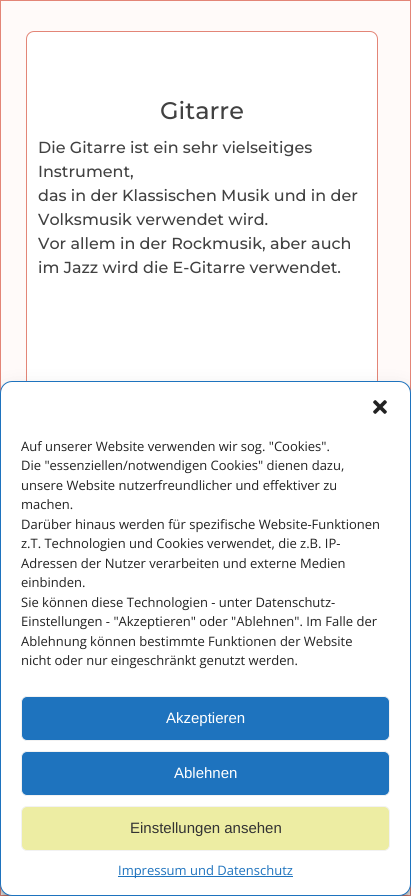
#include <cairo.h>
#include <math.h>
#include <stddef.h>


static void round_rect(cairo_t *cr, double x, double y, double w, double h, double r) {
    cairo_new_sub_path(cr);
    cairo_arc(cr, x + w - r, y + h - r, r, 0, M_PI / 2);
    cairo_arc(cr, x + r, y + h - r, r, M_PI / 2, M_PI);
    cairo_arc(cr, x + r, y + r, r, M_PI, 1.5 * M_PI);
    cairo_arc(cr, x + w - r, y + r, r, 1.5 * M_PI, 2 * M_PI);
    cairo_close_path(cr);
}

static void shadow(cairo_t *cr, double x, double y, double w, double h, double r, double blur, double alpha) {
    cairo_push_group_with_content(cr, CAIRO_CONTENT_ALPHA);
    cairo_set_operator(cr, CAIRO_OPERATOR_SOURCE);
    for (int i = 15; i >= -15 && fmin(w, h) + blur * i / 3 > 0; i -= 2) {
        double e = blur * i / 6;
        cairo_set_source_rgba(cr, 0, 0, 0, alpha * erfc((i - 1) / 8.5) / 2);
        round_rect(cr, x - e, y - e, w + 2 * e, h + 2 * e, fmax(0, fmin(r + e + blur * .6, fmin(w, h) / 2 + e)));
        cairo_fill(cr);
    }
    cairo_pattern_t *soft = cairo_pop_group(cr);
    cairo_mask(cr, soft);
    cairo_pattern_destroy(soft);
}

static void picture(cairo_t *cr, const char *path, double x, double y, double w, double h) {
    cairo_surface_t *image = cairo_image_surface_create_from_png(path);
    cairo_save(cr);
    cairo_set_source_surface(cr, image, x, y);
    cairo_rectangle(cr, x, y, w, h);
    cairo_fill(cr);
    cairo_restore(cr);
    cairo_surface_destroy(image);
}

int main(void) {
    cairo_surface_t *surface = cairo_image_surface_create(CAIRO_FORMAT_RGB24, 411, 896);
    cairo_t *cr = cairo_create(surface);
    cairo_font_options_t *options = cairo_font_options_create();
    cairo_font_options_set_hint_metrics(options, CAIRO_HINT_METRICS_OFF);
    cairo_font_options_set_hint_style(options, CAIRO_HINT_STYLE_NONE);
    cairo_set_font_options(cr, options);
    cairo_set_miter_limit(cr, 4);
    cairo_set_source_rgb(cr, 1, 0.98, 0.976);
    cairo_paint(cr);
    cairo_rectangle(cr, 0.5, 0.5, 410, 895);
    cairo_set_source_rgb(cr, 0.89, 0.522, 0.467);
    cairo_set_line_width(cr, 1);
    cairo_stroke(cr);
    cairo_set_source_rgb(cr, 1, 1, 1);
    round_rect(cr, 26.5, 31.5, 351, 781, 7.5);
    cairo_fill_preserve(cr);
    cairo_set_source_rgb(cr, 0.89, 0.522, 0.467);
    cairo_stroke(cr);
    cairo_select_font_face(cr, "Montserrat Thin", CAIRO_FONT_SLANT_NORMAL, CAIRO_FONT_WEIGHT_NORMAL);
    cairo_set_font_size(cr, 24);
    cairo_set_source_rgb(cr, 0.255, 0.255, 0.255);
    cairo_move_to(cr, 160, 119);
    cairo_show_text(cr, "Gitarre");
    cairo_set_font_size(cr, 16);
    cairo_move_to(cr, 38, 153);
    cairo_show_text(cr, "Die Gitarre ist ein sehr vielseitiges");
    cairo_move_to(cr, 38, 177);
    cairo_show_text(cr, "Instrument,");
    cairo_move_to(cr, 38, 201);
    cairo_show_text(cr, "das in der Klassischen Musik und in der");
    cairo_move_to(cr, 38, 225);
    cairo_show_text(cr, "Volksmusik verwendet wird.");
    cairo_move_to(cr, 38, 249);
    cairo_show_text(cr, "Vor allem in der Rockmusik, aber auch");
    cairo_move_to(cr, 38, 273);
    cairo_show_text(cr, "im Jazz wird die E-Gitarre verwendet.");
    cairo_set_source_rgb(cr, 0, 0, 0);
    shadow(cr, 0, 387, 411, 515, 12, 3, 0.23);
    shadow(cr, 0, 391, 411, 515, 12, 10, 0.19);
    cairo_set_source_rgb(cr, 1, 1, 1);
    round_rect(cr, 0.5, 381.5, 410, 514, 11.5);
    cairo_fill_preserve(cr);
    cairo_set_source_rgb(cr, 0.118, 0.451, 0.745);
    cairo_stroke(cr);
    picture(cr, "img1.png", 373, 400, 14, 14);
    cairo_select_font_face(cr, "Open Sans", CAIRO_FONT_SLANT_NORMAL, CAIRO_FONT_WEIGHT_NORMAL);
    cairo_set_font_size(cr, 13);
    cairo_set_source_rgb(cr, 0.133, 0.133, 0.133);
    cairo_move_to(cr, 21, 451);
    cairo_show_text(cr, "Auf unserer Website verwenden wir sog. \"Cookies\".");
    cairo_move_to(cr, 21, 470);
    cairo_show_text(cr, "Die \"essenziellen/notwendigen Cookies\" dienen dazu,");
    cairo_move_to(cr, 21, 490);
    cairo_show_text(cr, "unsere Website nutzerfreundlicher und effektiver zu");
    cairo_move_to(cr, 21, 509);
    cairo_show_text(cr, "machen.");
    cairo_move_to(cr, 21, 529);
    cairo_show_text(cr, "Darüber hinaus werden für spezifische Website-Funktionen");
    cairo_move_to(cr, 21, 548);
    cairo_show_text(cr, "z.T. Technologien und Cookies verwendet, die z.B. IP-");
    cairo_move_to(cr, 21, 568);
    cairo_show_text(cr, "Adressen der Nutzer verarbeiten und externe Medien");
    cairo_move_to(cr, 21, 587);
    cairo_show_text(cr, "einbinden.");
    cairo_move_to(cr, 21, 607);
    cairo_show_text(cr, "Sie können diese Technologien - unter Datenschutz-");
    cairo_move_to(cr, 21, 626);
    cairo_show_text(cr, "Einstellungen - \"Akzeptieren\" oder \"Ablehnen\". Im Falle der");
    cairo_move_to(cr, 21, 646);
    cairo_show_text(cr, "Ablehnung können bestimmte Funktionen der Website");
    cairo_move_to(cr, 21, 665);
    cairo_show_text(cr, "nicht oder nur eingeschränkt genutzt werden.");
    cairo_set_source_rgb(cr, 0.118, 0.451, 0.745);
    round_rect(cr, 21.5, 696.5, 368, 44, 5.5);
    cairo_fill_preserve(cr);
    cairo_set_source_rgb(cr, 0.949, 0.949, 0.949);
    cairo_stroke(cr);
    cairo_select_font_face(cr, "Liberation Sans", CAIRO_FONT_SLANT_NORMAL, CAIRO_FONT_WEIGHT_NORMAL);
    cairo_set_font_size(cr, 15);
    cairo_set_source_rgb(cr, 1, 1, 1);
    cairo_move_to(cr, 166, 723);
    cairo_show_text(cr, "Akzeptieren");
    cairo_set_source_rgb(cr, 0.118, 0.451, 0.745);
    round_rect(cr, 21.5, 751.5, 368, 44, 5.5);
    cairo_fill_preserve(cr);
    cairo_set_source_rgb(cr, 0.949, 0.949, 0.949);
    cairo_stroke(cr);
    cairo_set_source_rgb(cr, 1, 1, 1);
    cairo_move_to(cr, 174, 778);
    cairo_show_text(cr, "Ablehnen");
    cairo_set_source_rgb(cr, 0.929, 0.929, 0.639);
    round_rect(cr, 21.5, 806.5, 368, 44, 5.5);
    cairo_fill_preserve(cr);
    cairo_set_source_rgb(cr, 0.949, 0.949, 0.949);
    cairo_stroke(cr);
    cairo_set_source_rgb(cr, 0.2, 0.2, 0.2);
    cairo_move_to(cr, 130, 833);
    cairo_show_text(cr, "Einstellungen ansehen");
    cairo_set_source_rgb(cr, 0.118, 0.451, 0.745);
    cairo_rectangle(cr, 118, 876, 175, 1);
    cairo_fill(cr);
    cairo_select_font_face(cr, "Open Sans", CAIRO_FONT_SLANT_NORMAL, CAIRO_FONT_WEIGHT_NORMAL);
    cairo_set_font_size(cr, 13);
    cairo_move_to(cr, 118, 875);
    cairo_show_text(cr, "Impressum und Datenschutz");
    cairo_surface_write_to_png(surface, "page.png");
    cairo_font_options_destroy(options);
    cairo_destroy(cr);
    cairo_surface_destroy(surface);
    return 0;
}
